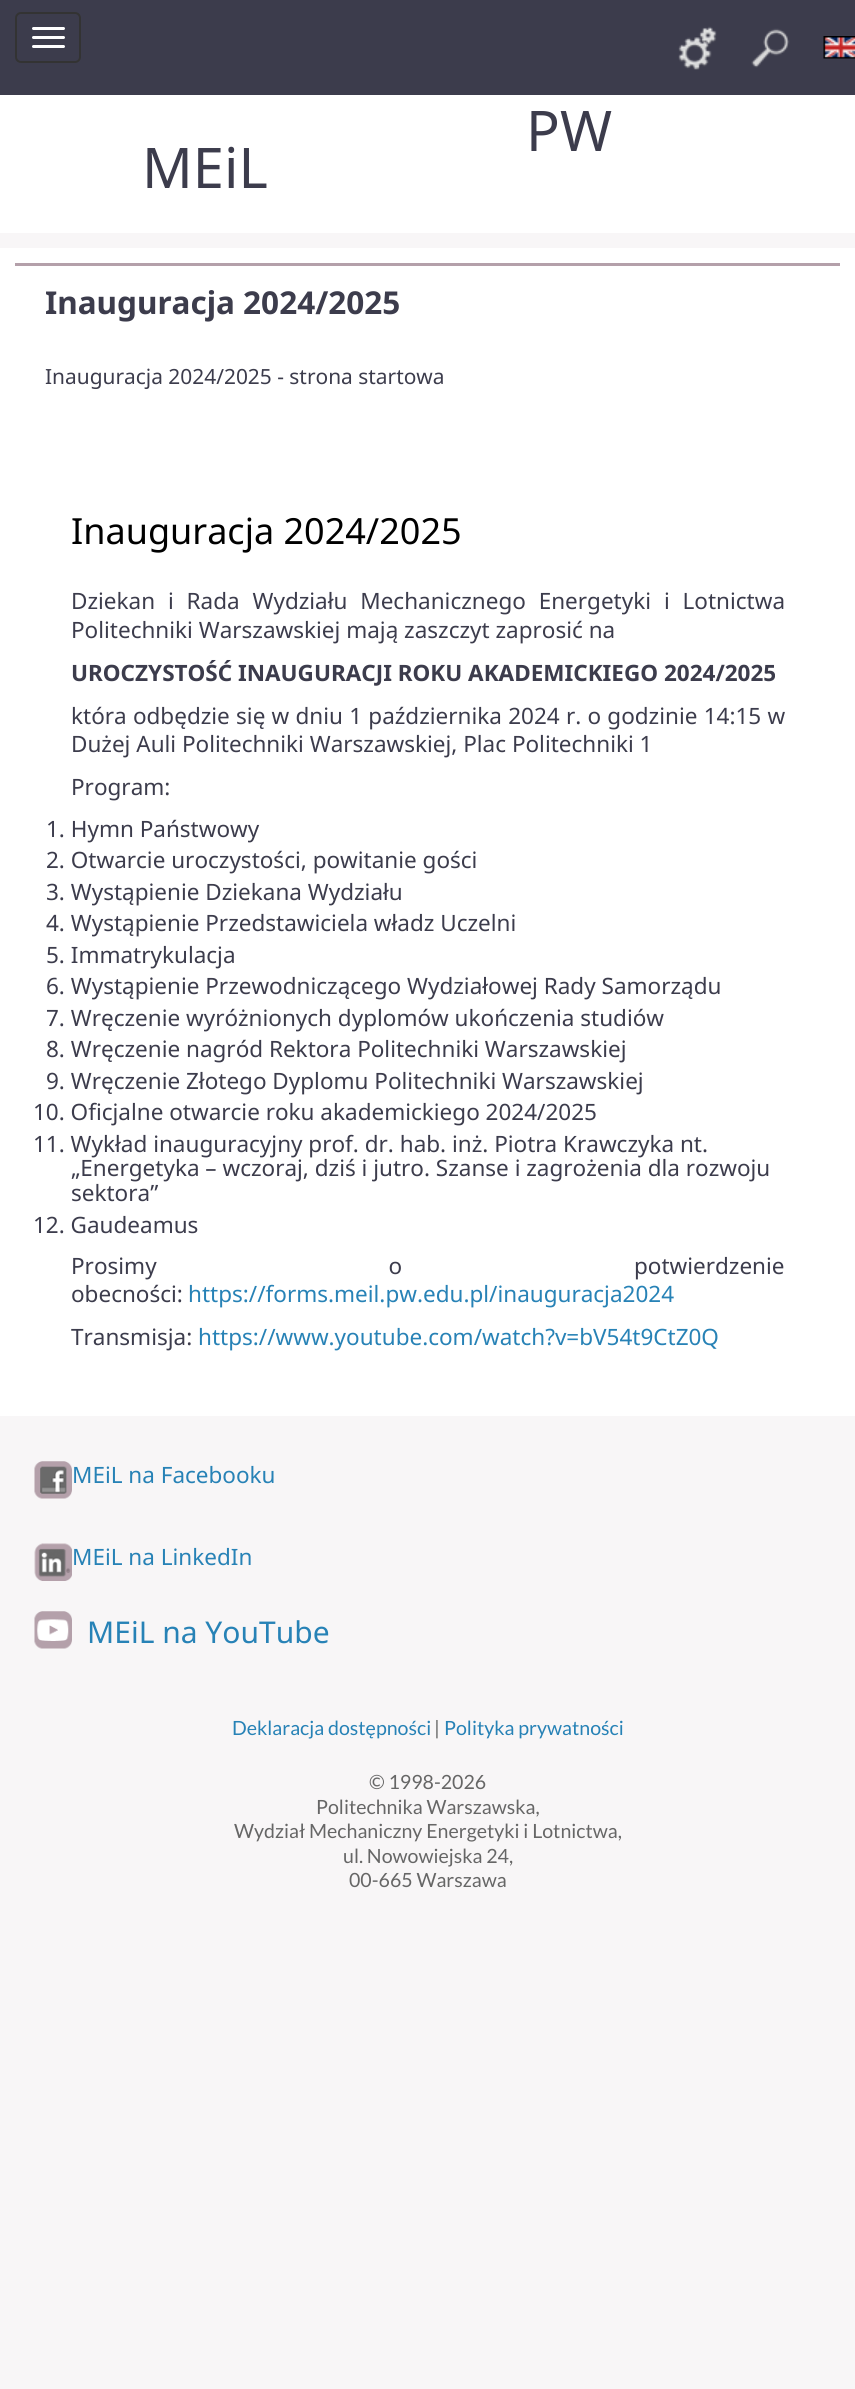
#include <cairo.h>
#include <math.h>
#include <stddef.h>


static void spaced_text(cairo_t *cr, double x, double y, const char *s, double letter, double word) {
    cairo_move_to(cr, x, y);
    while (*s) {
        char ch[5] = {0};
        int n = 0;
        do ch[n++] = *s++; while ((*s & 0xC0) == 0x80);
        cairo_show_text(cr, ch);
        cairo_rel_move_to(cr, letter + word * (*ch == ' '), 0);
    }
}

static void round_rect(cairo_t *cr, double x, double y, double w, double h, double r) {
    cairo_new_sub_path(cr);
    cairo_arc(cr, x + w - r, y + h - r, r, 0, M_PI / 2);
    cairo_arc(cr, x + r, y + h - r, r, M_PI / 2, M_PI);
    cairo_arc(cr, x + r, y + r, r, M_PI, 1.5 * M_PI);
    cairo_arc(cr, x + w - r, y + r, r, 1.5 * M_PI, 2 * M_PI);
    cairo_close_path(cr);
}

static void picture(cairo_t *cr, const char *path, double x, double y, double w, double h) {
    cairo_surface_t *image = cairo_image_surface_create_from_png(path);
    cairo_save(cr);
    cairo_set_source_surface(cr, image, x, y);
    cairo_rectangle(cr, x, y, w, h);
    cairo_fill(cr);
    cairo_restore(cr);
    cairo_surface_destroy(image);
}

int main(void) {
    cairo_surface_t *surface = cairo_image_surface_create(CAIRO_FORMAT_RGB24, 855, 2389);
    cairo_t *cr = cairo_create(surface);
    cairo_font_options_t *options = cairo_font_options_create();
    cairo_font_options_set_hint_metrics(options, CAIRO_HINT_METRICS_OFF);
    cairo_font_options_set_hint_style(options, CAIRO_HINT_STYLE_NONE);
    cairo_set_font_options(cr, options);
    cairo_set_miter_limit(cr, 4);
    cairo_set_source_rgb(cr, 0.969, 0.961, 0.965);
    cairo_paint(cr);
    cairo_set_source_rgb(cr, 0.235, 0.235, 0.298);
    cairo_rectangle(cr, 0, 0, 855, 95);
    cairo_fill(cr);
    round_rect(cr, 16, 13, 64, 49, 5);
    cairo_set_source_rgb(cr, 0.2, 0.2, 0.2);
    cairo_stroke(cr);
    cairo_set_source_rgb(cr, 1, 1, 1);
    round_rect(cr, 32, 27, 33, 3, 1.5);
    cairo_fill(cr);
    round_rect(cr, 32, 36, 33, 3, 1.5);
    cairo_fill(cr);
    round_rect(cr, 32, 45, 33, 3, 1.5);
    cairo_fill(cr);
    picture(cr, "img1.png", 678, 26, 39, 44);
    picture(cr, "img2.png", 751, 28, 39, 40);
    picture(cr, "img3.png", 823, 36, 32, 23);
    cairo_rectangle(cr, 0, 95, 855, 138);
    cairo_fill(cr);
    cairo_select_font_face(cr, "Noto Sans", CAIRO_FONT_SLANT_NORMAL, CAIRO_FONT_WEIGHT_NORMAL);
    cairo_set_font_size(cr, 56);
    cairo_set_source_rgb(cr, 0.235, 0.235, 0.298);
    cairo_move_to(cr, 526, 151);
    cairo_show_text(cr, "PW");
    cairo_move_to(cr, 142, 188);
    cairo_show_text(cr, "MEiL");
    cairo_set_source_rgb(cr, 1, 1, 1);
    cairo_rectangle(cr, 0, 248, 855, 1168);
    cairo_fill(cr);
    cairo_set_source_rgb(cr, 0.706, 0.627, 0.667);
    cairo_rectangle(cr, 15, 263, 825, 3);
    cairo_fill(cr);
    cairo_select_font_face(cr, "Noto Sans", CAIRO_FONT_SLANT_NORMAL, CAIRO_FONT_WEIGHT_BOLD);
    cairo_set_font_size(cr, 31.5);
    cairo_set_source_rgb(cr, 0.235, 0.235, 0.298);
    cairo_move_to(cr, 45, 314);
    cairo_show_text(cr, "Inauguracja 2024/2025");
    cairo_select_font_face(cr, "Noto Sans", CAIRO_FONT_SLANT_NORMAL, CAIRO_FONT_WEIGHT_NORMAL);
    cairo_set_font_size(cr, 20.9);
    cairo_move_to(cr, 45, 384);
    cairo_show_text(cr, "Inauguracja 2024/2025 - strona startowa");
    cairo_set_font_size(cr, 36);
    cairo_set_source_rgb(cr, 0, 0, 0);
    cairo_move_to(cr, 71, 544);
    cairo_show_text(cr, "Inauguracja 2024/2025");
    cairo_set_font_size(cr, 22.5);
    cairo_set_source_rgb(cr, 0.235, 0.235, 0.298);
    spaced_text(cr, 71, 609, "Dziekan i Rada Wydziału Mechanicznego Energetyki i Lotnictwa", 0, 7);
    cairo_move_to(cr, 71, 638);
    cairo_show_text(cr, "Politechniki Warszawskiej mają zaszczyt zaprosić na");
    cairo_select_font_face(cr, "Noto Sans", CAIRO_FONT_SLANT_NORMAL, CAIRO_FONT_WEIGHT_BOLD);
    cairo_move_to(cr, 71, 681);
    cairo_show_text(cr, "UROCZYSTOŚĆ INAUGURACJI ROKU AKADEMICKIEGO 2024/2025");
    cairo_select_font_face(cr, "Noto Sans", CAIRO_FONT_SLANT_NORMAL, CAIRO_FONT_WEIGHT_NORMAL);
    spaced_text(cr, 71, 724, "która odbędzie się w dniu 1 października 2024 r. o godzinie 14:15 w", 0, 0.4);
    cairo_move_to(cr, 71, 752);
    cairo_show_text(cr, "Dużej Auli Politechniki Warszawskiej, Plac Politechniki 1");
    cairo_move_to(cr, 71, 795);
    cairo_show_text(cr, "Program:");
    cairo_move_to(cr, 46, 837);
    cairo_show_text(cr, "1. Hymn Państwowy");
    cairo_move_to(cr, 46, 868);
    cairo_show_text(cr, "2. Otwarcie uroczystości, powitanie gości");
    cairo_move_to(cr, 46, 900);
    cairo_show_text(cr, "3. Wystąpienie Dziekana Wydziału");
    cairo_move_to(cr, 46, 931);
    cairo_show_text(cr, "4. Wystąpienie Przedstawiciela władz Uczelni");
    cairo_move_to(cr, 46, 963);
    cairo_show_text(cr, "5. Immatrykulacja");
    cairo_move_to(cr, 46, 994);
    cairo_show_text(cr, "6. Wystąpienie Przewodniczącego Wydziałowej Rady Samorządu");
    cairo_move_to(cr, 46, 1026);
    cairo_show_text(cr, "7. Wręczenie wyróżnionych dyplomów ukończenia studiów");
    cairo_move_to(cr, 46, 1057);
    cairo_show_text(cr, "8. Wręczenie nagród Rektora Politechniki Warszawskiej");
    cairo_move_to(cr, 46, 1089);
    cairo_show_text(cr, "9. Wręczenie Złotego Dyplomu Politechniki Warszawskiej");
    cairo_move_to(cr, 33, 1120);
    cairo_show_text(cr, "10. Oficjalne otwarcie roku akademickiego 2024/2025");
    cairo_move_to(cr, 33, 1152);
    cairo_show_text(cr, "11. Wykład inauguracyjny prof. dr. hab. inż. Piotra Krawczyka nt.");
    cairo_move_to(cr, 71, 1176);
    cairo_show_text(cr, "„Energetyka – wczoraj, dziś i jutro. Szanse i zagrożenia dla rozwoju");
    cairo_move_to(cr, 71, 1201);
    cairo_show_text(cr, "sektora”");
    cairo_move_to(cr, 33, 1233);
    cairo_show_text(cr, "12. Gaudeamus");
    spaced_text(cr, 71, 1274, "Prosimy o potwierdzenie", 0, 226);
    cairo_move_to(cr, 71, 1302);
    cairo_show_text(cr, "obecności:");
    cairo_set_source_rgb(cr, 0.153, 0.51, 0.714);
    cairo_move_to(cr, 188, 1302);
    cairo_show_text(cr, "https://forms.meil.pw.edu.pl/inauguracja2024");
    cairo_set_source_rgb(cr, 0.235, 0.235, 0.298);
    cairo_move_to(cr, 71, 1345);
    cairo_show_text(cr, "Transmisja:");
    cairo_set_source_rgb(cr, 0.153, 0.51, 0.714);
    cairo_move_to(cr, 198, 1345);
    cairo_show_text(cr, "https://www.youtube.com/watch?v=bV54t9CtZ0Q");
    picture(cr, "img4.png", 34, 1461, 38, 38);
    cairo_move_to(cr, 72, 1483);
    cairo_show_text(cr, "MEiL na Facebooku");
    picture(cr, "img5.png", 34, 1543, 38, 38);
    cairo_move_to(cr, 72, 1565);
    cairo_show_text(cr, "MEiL na LinkedIn");
    picture(cr, "img6.png", 34, 1611, 38, 38);
    cairo_set_font_size(cr, 30);
    cairo_move_to(cr, 87, 1643);
    cairo_show_text(cr, "MEiL na YouTube");
    cairo_select_font_face(cr, "Lato", CAIRO_FONT_SLANT_NORMAL, CAIRO_FONT_WEIGHT_NORMAL);
    cairo_set_font_size(cr, 19.6);
    cairo_move_to(cr, 232, 1735);
    cairo_show_text(cr, "Deklaracja dostępności");
    cairo_set_source_rgb(cr, 0.4, 0.4, 0.4);
    cairo_move_to(cr, 434, 1735);
    cairo_show_text(cr, "|");
    cairo_set_source_rgb(cr, 0.153, 0.51, 0.714);
    cairo_move_to(cr, 444, 1735);
    cairo_show_text(cr, "Polityka prywatności");
    cairo_set_source_rgb(cr, 0.4, 0.4, 0.4);
    cairo_move_to(cr, 369, 1789);
    cairo_show_text(cr, "© 1998-2026");
    cairo_move_to(cr, 316, 1814);
    cairo_show_text(cr, "Politechnika Warszawska,");
    cairo_move_to(cr, 234, 1838);
    cairo_show_text(cr, "Wydział Mechaniczny Energetyki i Lotnictwa,");
    cairo_move_to(cr, 343, 1863);
    cairo_show_text(cr, "ul. Nowowiejska 24,");
    cairo_move_to(cr, 349, 1887);
    cairo_show_text(cr, "00-665 Warszawa");
    cairo_surface_write_to_png(surface, "page.png");
    cairo_font_options_destroy(options);
    cairo_destroy(cr);
    cairo_surface_destroy(surface);
    return 0;
}
